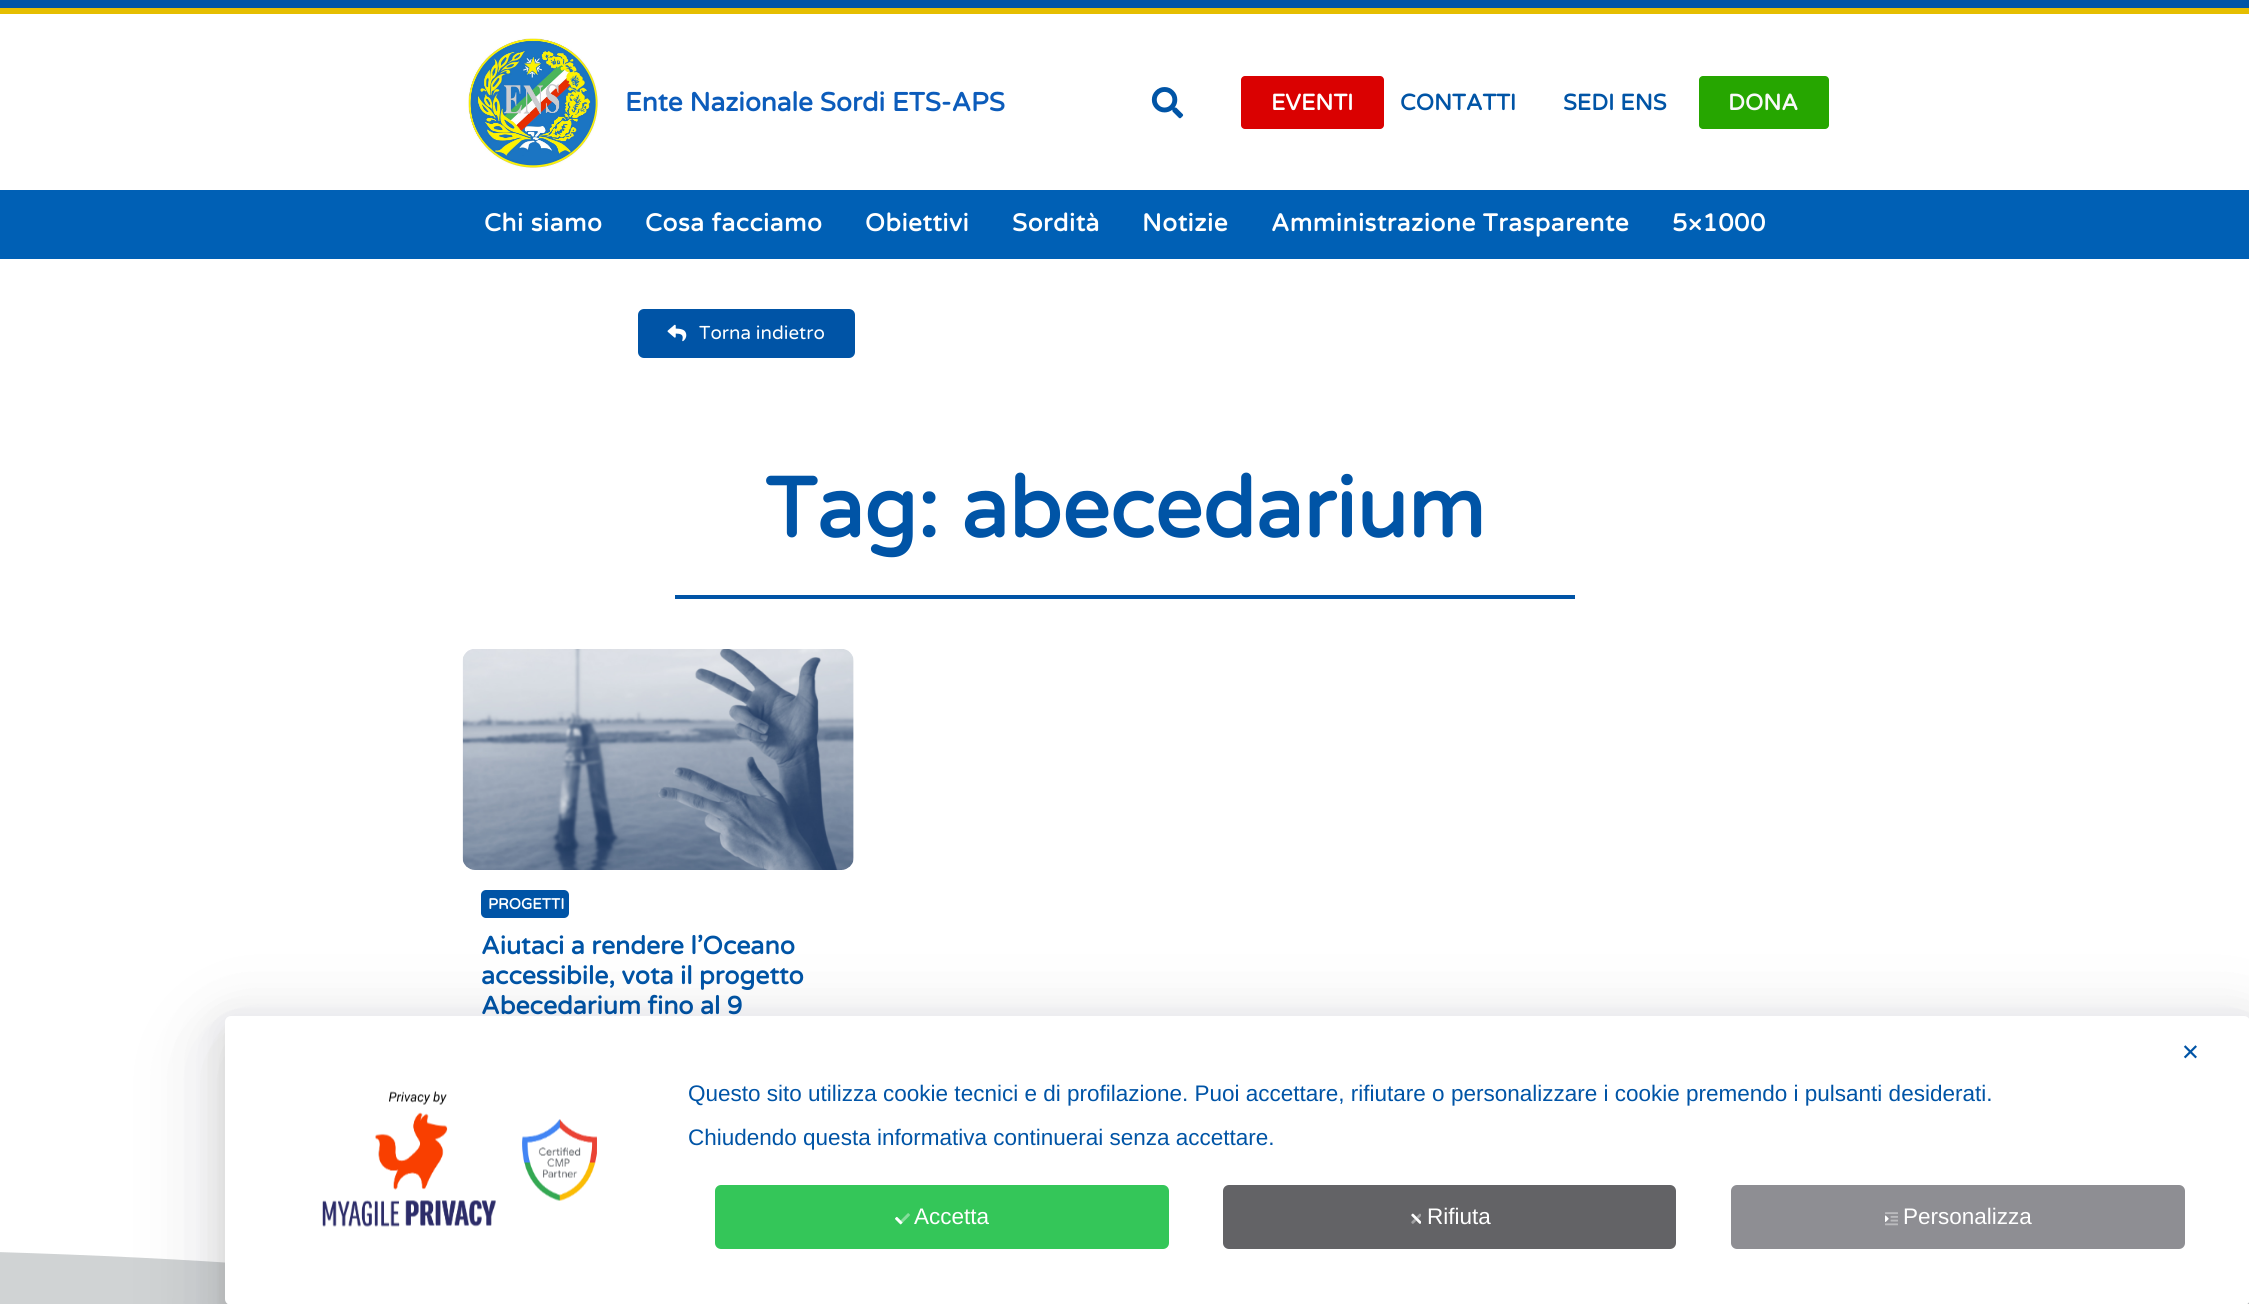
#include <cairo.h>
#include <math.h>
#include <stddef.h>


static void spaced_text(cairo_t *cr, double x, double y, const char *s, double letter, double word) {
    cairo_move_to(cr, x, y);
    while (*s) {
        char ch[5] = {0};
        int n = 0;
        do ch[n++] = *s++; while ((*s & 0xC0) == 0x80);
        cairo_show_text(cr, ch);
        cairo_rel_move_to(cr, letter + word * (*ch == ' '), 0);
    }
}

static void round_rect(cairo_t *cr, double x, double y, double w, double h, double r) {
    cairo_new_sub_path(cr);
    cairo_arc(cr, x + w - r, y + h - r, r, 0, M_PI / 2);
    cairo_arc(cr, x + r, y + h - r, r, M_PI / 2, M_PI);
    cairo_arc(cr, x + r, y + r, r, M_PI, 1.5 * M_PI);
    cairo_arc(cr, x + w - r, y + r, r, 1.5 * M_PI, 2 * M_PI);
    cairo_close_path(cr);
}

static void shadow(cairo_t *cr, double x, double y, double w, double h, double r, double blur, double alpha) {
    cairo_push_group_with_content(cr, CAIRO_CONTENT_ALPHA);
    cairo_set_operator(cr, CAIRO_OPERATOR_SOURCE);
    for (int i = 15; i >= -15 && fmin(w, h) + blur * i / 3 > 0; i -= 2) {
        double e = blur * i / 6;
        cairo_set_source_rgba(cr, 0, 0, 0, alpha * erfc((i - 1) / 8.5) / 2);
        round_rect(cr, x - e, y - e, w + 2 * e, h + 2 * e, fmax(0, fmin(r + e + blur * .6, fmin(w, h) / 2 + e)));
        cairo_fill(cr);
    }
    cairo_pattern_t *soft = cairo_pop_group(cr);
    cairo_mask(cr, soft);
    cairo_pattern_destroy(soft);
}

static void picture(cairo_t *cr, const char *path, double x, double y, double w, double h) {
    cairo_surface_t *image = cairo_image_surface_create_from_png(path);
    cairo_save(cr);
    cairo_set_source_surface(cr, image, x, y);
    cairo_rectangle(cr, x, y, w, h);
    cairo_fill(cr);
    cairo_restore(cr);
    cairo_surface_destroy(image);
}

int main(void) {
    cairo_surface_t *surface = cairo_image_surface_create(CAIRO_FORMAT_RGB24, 2249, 1304);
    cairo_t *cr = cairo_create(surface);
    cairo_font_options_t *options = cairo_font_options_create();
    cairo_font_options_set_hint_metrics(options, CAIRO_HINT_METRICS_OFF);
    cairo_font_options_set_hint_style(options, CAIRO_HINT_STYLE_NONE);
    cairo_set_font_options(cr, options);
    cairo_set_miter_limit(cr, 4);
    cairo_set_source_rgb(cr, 1, 1, 1);
    cairo_paint(cr);
    cairo_set_source_rgb(cr, 0, 0.329, 0.651);
    cairo_rectangle(cr, 0, 0, 2249, 8);
    cairo_fill(cr);
    cairo_set_source_rgb(cr, 0.898, 0.745, 0.004);
    cairo_rectangle(cr, 0, 8, 2249, 6);
    cairo_fill(cr);
    picture(cr, "img1.png", 468, 38, 130, 130);
    cairo_select_font_face(cr, "Varela Round", CAIRO_FONT_SLANT_NORMAL, CAIRO_FONT_WEIGHT_BOLD);
    cairo_set_font_size(cr, 26.25);
    cairo_set_source_rgb(cr, 0.047, 0.361, 0.733);
    cairo_move_to(cr, 625, 111);
    cairo_show_text(cr, "Ente Nazionale Sordi ETS-APS");
    picture(cr, "img2.png", 1151, 87, 33, 32);
    cairo_set_source_rgb(cr, 0.855, 0.004, 0.004);
    round_rect(cr, 1241, 76, 143, 53, 4);
    cairo_fill(cr);
    cairo_set_font_size(cr, 22.5);
    cairo_set_source_rgb(cr, 1, 1, 1);
    cairo_move_to(cr, 1271, 110);
    cairo_show_text(cr, "EVENTI");
    cairo_set_source_rgb(cr, 0, 0.329, 0.651);
    cairo_move_to(cr, 1400, 110);
    cairo_show_text(cr, "CONTATTI");
    cairo_move_to(cr, 1563, 110);
    cairo_show_text(cr, "SEDI ENS");
    cairo_set_source_rgb(cr, 0.149, 0.651, 0);
    round_rect(cr, 1699, 76, 130, 53, 4);
    cairo_fill(cr);
    cairo_set_source_rgb(cr, 0.973, 0.973, 0.973);
    cairo_move_to(cr, 1728, 110);
    cairo_show_text(cr, "DONA");
    cairo_set_source_rgb(cr, 0, 0.376, 0.71);
    cairo_rectangle(cr, 0, 190, 2249, 69);
    cairo_fill(cr);
    cairo_set_font_size(cr, 24.4);
    cairo_set_source_rgb(cr, 1, 1, 1);
    spaced_text(cr, 484, 231, "Chi siamo", 0.6, 0);
    spaced_text(cr, 645, 231, "Cosa facciamo", 0.6, 0);
    spaced_text(cr, 865, 231, "Obiettivi", 0.6, 0);
    spaced_text(cr, 1012, 231, "Sordità", 0.6, 0);
    spaced_text(cr, 1142, 231, "Notizie", 0.6, 0);
    spaced_text(cr, 1271, 231, "Amministrazione Trasparente", 0.6, 0);
    spaced_text(cr, 1672, 231, "5×1000", 0.6, 0);
    cairo_set_source_rgb(cr, 0, 0.329, 0.651);
    round_rect(cr, 638, 309, 217, 49, 6);
    cairo_fill(cr);
    picture(cr, "img3.png", 667, 324, 20, 18);
    cairo_select_font_face(cr, "Varela Round", CAIRO_FONT_SLANT_NORMAL, CAIRO_FONT_WEIGHT_NORMAL);
    cairo_set_font_size(cr, 18.75);
    cairo_set_source_rgb(cr, 1, 1, 1);
    cairo_move_to(cr, 699, 339);
    cairo_show_text(cr, "Torna indietro");
    cairo_select_font_face(cr, "Varela Round", CAIRO_FONT_SLANT_NORMAL, CAIRO_FONT_WEIGHT_BOLD);
    cairo_set_font_size(cr, 84.4);
    cairo_set_source_rgb(cr, 0, 0.329, 0.651);
    cairo_move_to(cr, 765, 537);
    cairo_show_text(cr, "Tag: abecedarium");
    cairo_rectangle(cr, 675, 595, 900, 4);
    cairo_fill(cr);
    picture(cr, "img4.png", 462, 649, 392, 221);
    round_rect(cr, 481, 890, 88, 28, 5);
    cairo_fill(cr);
    cairo_set_font_size(cr, 15);
    cairo_set_source_rgb(cr, 1, 1, 1);
    cairo_move_to(cr, 488, 909);
    cairo_show_text(cr, "PROGETTI");
    cairo_set_font_size(cr, 25);
    cairo_set_source_rgb(cr, 0, 0.329, 0.651);
    cairo_move_to(cr, 481, 954);
    cairo_show_text(cr, "Aiutaci a rendere l’Oceano");
    cairo_move_to(cr, 481, 984);
    cairo_show_text(cr, "accessibile, vota il progetto");
    cairo_move_to(cr, 481, 1014);
    cairo_show_text(cr, "Abecedarium fino al 9");
    cairo_set_source_rgb(cr, 0.816, 0.827, 0.831);
    cairo_rectangle(cr, 0, 1252, 2249, 52);
    cairo_fill(cr);
    cairo_set_source_rgb(cr, 1, 1, 1);
    cairo_new_path(cr);
    cairo_move_to(cr, 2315, 1217);
    cairo_curve_to(cr, 2072, 1221, 1837, 1232, 1526, 1258);
    cairo_curve_to(cr, 1405, 1269, 1211, 1284, 1114, 1289);
    cairo_curve_to(cr, 1018, 1293, 899, 1295, 805, 1293);
    cairo_curve_to(cr, 763, 1292, 712, 1292, 600, 1287);
    cairo_curve_to(cr, 488, 1282, 361, 1273, 275, 1266);
    cairo_curve_to(cr, 105, 1253, -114, 1248, -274, 1247);
    cairo_curve_to(cr, -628, 1246, -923, 1273, -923, 1273);
    cairo_line_to(cr, -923, 1211);
    cairo_line_to(cr, 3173, 1211);
    cairo_line_to(cr, 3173, 1240);
    cairo_curve_to(cr, 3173, 1240, 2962, 1224, 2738, 1218);
    cairo_curve_to(cr, 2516, 1213, 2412, 1215, 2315, 1217);
    cairo_close_path(cr);
    cairo_fill(cr);
    cairo_set_source_rgb(cr, 0.067, 0.067, 0.102);
    shadow(cr, 225, 1046, 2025, 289, 6, 50, 0.1);
    shadow(cr, 225, 1036, 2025, 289, 6, 35, 0.1);
    shadow(cr, 225, 1026, 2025, 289, 6, 15, 0.1);
    cairo_set_source_rgb(cr, 1, 1, 1);
    round_rect(cr, 225, 1016, 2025, 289, 6);
    cairo_fill(cr);
    cairo_select_font_face(cr, "DejaVu Sans", CAIRO_FONT_SLANT_NORMAL, CAIRO_FONT_WEIGHT_NORMAL);
    cairo_set_font_size(cr, 22.5);
    cairo_set_source_rgb(cr, 0, 0.329, 0.651);
    cairo_move_to(cr, 2181, 1060);
    cairo_show_text(cr, "✕");
    picture(cr, "img5.png", 322, 1091, 275, 136);
    cairo_select_font_face(cr, "Liberation Sans", CAIRO_FONT_SLANT_NORMAL, CAIRO_FONT_WEIGHT_NORMAL);
    cairo_move_to(cr, 688, 1101);
    cairo_show_text(cr, "Questo sito utilizza cookie tecnici e di profilazione. Puoi accettare, rifiutare o personalizzare i cookie premendo i pulsanti desiderati.");
    cairo_move_to(cr, 688, 1145);
    cairo_show_text(cr, "Chiudendo questa informativa continuerai senza accettare.");
    cairo_set_source_rgb(cr, 0.204, 0.776, 0.349);
    round_rect(cr, 715, 1185, 454, 64, 6);
    cairo_fill(cr);
    picture(cr, "img6.png", 895, 1213, 15, 12);
    cairo_set_source_rgb(cr, 1, 1, 1);
    cairo_move_to(cr, 914, 1224);
    cairo_show_text(cr, "Accetta");
    cairo_set_source_rgb(cr, 0.388, 0.388, 0.4);
    round_rect(cr, 1223, 1185, 453, 64, 6);
    cairo_fill(cr);
    picture(cr, "img7.png", 1411, 1213, 10, 11);
    cairo_set_source_rgb(cr, 1, 1, 1);
    cairo_move_to(cr, 1427, 1224);
    cairo_show_text(cr, "Rifiuta");
    cairo_set_source_rgb(cr, 0.557, 0.557, 0.576);
    round_rect(cr, 1731, 1185, 454, 64, 6);
    cairo_fill(cr);
    picture(cr, "img8.png", 1885, 1212, 13, 14);
    cairo_set_source_rgb(cr, 1, 1, 1);
    cairo_move_to(cr, 1903, 1224);
    cairo_show_text(cr, "Personalizza");
    cairo_surface_write_to_png(surface, "page.png");
    cairo_font_options_destroy(options);
    cairo_destroy(cr);
    cairo_surface_destroy(surface);
    return 0;
}
